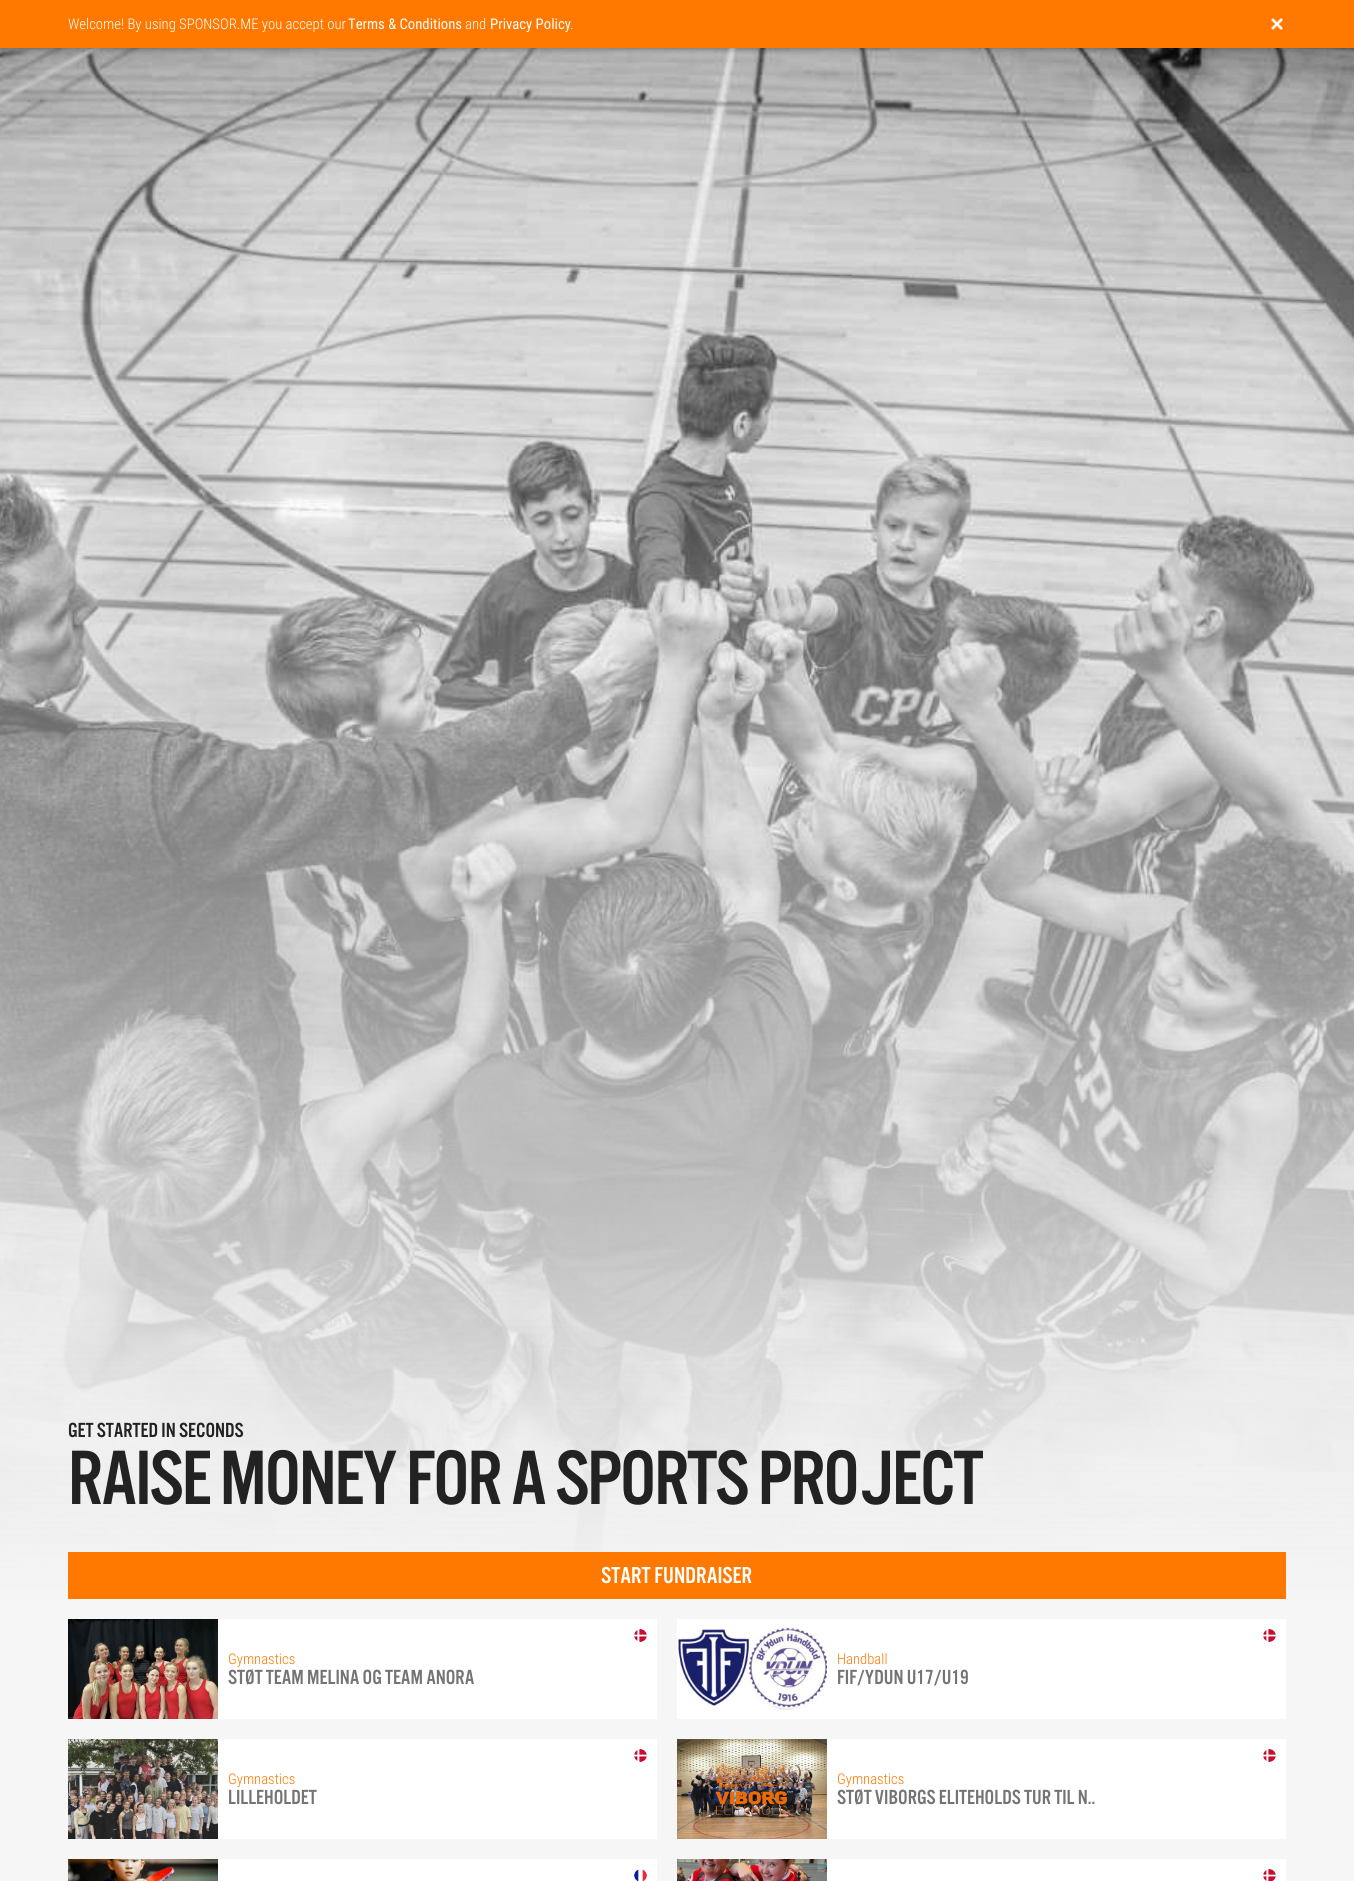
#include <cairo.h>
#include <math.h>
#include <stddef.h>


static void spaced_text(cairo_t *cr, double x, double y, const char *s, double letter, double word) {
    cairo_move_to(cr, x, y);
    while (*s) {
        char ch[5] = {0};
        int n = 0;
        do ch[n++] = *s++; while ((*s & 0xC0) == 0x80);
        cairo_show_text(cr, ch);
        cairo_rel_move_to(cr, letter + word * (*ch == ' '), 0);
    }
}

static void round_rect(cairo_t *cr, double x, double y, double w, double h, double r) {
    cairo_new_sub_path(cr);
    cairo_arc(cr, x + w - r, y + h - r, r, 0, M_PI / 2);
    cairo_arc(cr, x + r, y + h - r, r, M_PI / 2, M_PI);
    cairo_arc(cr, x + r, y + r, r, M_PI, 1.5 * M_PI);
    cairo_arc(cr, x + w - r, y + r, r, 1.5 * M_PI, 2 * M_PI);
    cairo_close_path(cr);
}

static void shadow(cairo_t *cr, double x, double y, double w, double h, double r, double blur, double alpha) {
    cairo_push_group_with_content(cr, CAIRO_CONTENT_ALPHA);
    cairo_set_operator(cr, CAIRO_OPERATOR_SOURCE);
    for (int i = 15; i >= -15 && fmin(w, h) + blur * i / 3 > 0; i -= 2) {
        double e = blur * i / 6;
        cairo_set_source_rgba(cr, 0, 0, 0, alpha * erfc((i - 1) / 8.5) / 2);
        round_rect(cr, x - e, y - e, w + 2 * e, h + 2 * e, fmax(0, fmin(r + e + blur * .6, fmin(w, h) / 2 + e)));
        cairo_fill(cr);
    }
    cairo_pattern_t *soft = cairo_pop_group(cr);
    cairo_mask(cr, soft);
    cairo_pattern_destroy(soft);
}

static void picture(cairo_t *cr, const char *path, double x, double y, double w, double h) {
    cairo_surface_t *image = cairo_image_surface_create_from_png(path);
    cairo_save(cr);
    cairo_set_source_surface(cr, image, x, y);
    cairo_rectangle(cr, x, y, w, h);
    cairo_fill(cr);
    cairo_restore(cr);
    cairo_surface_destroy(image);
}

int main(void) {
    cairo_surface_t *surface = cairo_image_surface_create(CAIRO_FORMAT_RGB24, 1354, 1881);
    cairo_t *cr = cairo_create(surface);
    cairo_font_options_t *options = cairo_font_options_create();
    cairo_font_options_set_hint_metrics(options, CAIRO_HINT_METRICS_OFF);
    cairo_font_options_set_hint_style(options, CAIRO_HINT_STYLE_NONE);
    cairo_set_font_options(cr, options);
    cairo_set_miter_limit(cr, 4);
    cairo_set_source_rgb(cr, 0.961, 0.961, 0.961);
    cairo_paint(cr);
    picture(cr, "img2.png", 0, 48, 1354, 1551);
    cairo_set_source_rgb(cr, 0, 0, 0);
    shadow(cr, 0, 1, 1354, 48, 0, 2, 0.2);
    cairo_set_source_rgb(cr, 1, 0.471, 0);
    cairo_rectangle(cr, 0, 0, 1354, 48);
    cairo_fill(cr);
    cairo_select_font_face(cr, "Roboto Condensed Light", CAIRO_FONT_SLANT_NORMAL, CAIRO_FONT_WEIGHT_NORMAL);
    cairo_set_font_size(cr, 14.7);
    cairo_set_source_rgb(cr, 1, 1, 1);
    cairo_move_to(cr, 68, 29);
    cairo_show_text(cr, "Welcome! By using SPONSOR.ME you accept our");
    cairo_select_font_face(cr, "Roboto Condensed", CAIRO_FONT_SLANT_NORMAL, CAIRO_FONT_WEIGHT_NORMAL);
    cairo_move_to(cr, 348, 29);
    cairo_show_text(cr, "Terms & Conditions");
    cairo_select_font_face(cr, "Roboto Condensed Light", CAIRO_FONT_SLANT_NORMAL, CAIRO_FONT_WEIGHT_NORMAL);
    cairo_move_to(cr, 465, 29);
    cairo_show_text(cr, "and");
    cairo_select_font_face(cr, "Roboto Condensed", CAIRO_FONT_SLANT_NORMAL, CAIRO_FONT_WEIGHT_NORMAL);
    cairo_move_to(cr, 490, 29);
    cairo_show_text(cr, "Privacy Policy");
    cairo_select_font_face(cr, "Roboto Condensed Light", CAIRO_FONT_SLANT_NORMAL, CAIRO_FONT_WEIGHT_NORMAL);
    cairo_move_to(cr, 570, 29);
    cairo_show_text(cr, ".");
    picture(cr, "img1.png", 1271, 18, 12, 12);
    cairo_select_font_face(cr, "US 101", CAIRO_FONT_SLANT_NORMAL, CAIRO_FONT_WEIGHT_NORMAL);
    cairo_set_font_size(cr, 21.25);
    cairo_set_source_rgb(cr, 0.133, 0.133, 0.133);
    cairo_move_to(cr, 68, 1437);
    cairo_show_text(cr, "GET STARTED IN SECONDS");
    cairo_set_font_size(cr, 80);
    spaced_text(cr, 68, 1504, "RAISE MONEY FOR A SPORTS PROJECT", -2, 0);
    cairo_set_source_rgb(cr, 1, 0.471, 0);
    cairo_rectangle(cr, 68, 1552, 1218, 47);
    cairo_fill(cr);
    cairo_set_font_size(cr, 24);
    cairo_set_source_rgb(cr, 1, 1, 1);
    cairo_move_to(cr, 601, 1583);
    cairo_show_text(cr, "START FUNDRAISER");
    cairo_rectangle(cr, 218, 1619, 439, 100);
    cairo_fill(cr);
    picture(cr, "img3.png", 68, 1619, 150, 100);
    picture(cr, "img4.png", 634, 1629, 13, 13);
    cairo_select_font_face(cr, "Roboto Condensed Light", CAIRO_FONT_SLANT_NORMAL, CAIRO_FONT_WEIGHT_NORMAL);
    cairo_set_font_size(cr, 14.7);
    cairo_set_source_rgb(cr, 1, 0.471, 0);
    cairo_move_to(cr, 228, 1664);
    cairo_show_text(cr, "Gymnastics");
    cairo_select_font_face(cr, "US 101", CAIRO_FONT_SLANT_NORMAL, CAIRO_FONT_WEIGHT_NORMAL);
    cairo_set_font_size(cr, 21.25);
    cairo_set_source_rgb(cr, 0.455, 0.455, 0.455);
    cairo_move_to(cr, 228, 1684);
    cairo_show_text(cr, "STØT TEAM MELINA OG TEAM ANORA");
    cairo_set_source_rgb(cr, 1, 1, 1);
    cairo_rectangle(cr, 827, 1619, 459, 100);
    cairo_fill(cr);
    picture(cr, "img5.png", 677, 1619, 150, 100);
    picture(cr, "img6.png", 1263, 1629, 13, 13);
    cairo_select_font_face(cr, "Roboto Condensed Light", CAIRO_FONT_SLANT_NORMAL, CAIRO_FONT_WEIGHT_NORMAL);
    cairo_set_font_size(cr, 14.7);
    cairo_set_source_rgb(cr, 1, 0.471, 0);
    cairo_move_to(cr, 837, 1664);
    cairo_show_text(cr, "Handball");
    cairo_select_font_face(cr, "US 101", CAIRO_FONT_SLANT_NORMAL, CAIRO_FONT_WEIGHT_NORMAL);
    cairo_set_font_size(cr, 21.25);
    cairo_set_source_rgb(cr, 0.455, 0.455, 0.455);
    cairo_move_to(cr, 837, 1684);
    cairo_show_text(cr, "FIF/YDUN U17/U19");
    cairo_set_source_rgb(cr, 1, 1, 1);
    cairo_rectangle(cr, 218, 1739, 439, 100);
    cairo_fill(cr);
    picture(cr, "img7.png", 68, 1739, 150, 100);
    picture(cr, "img4.png", 634, 1749, 13, 13);
    cairo_select_font_face(cr, "Roboto Condensed Light", CAIRO_FONT_SLANT_NORMAL, CAIRO_FONT_WEIGHT_NORMAL);
    cairo_set_font_size(cr, 14.7);
    cairo_set_source_rgb(cr, 1, 0.471, 0);
    cairo_move_to(cr, 228, 1784);
    cairo_show_text(cr, "Gymnastics");
    cairo_select_font_face(cr, "US 101", CAIRO_FONT_SLANT_NORMAL, CAIRO_FONT_WEIGHT_NORMAL);
    cairo_set_font_size(cr, 21.25);
    cairo_set_source_rgb(cr, 0.455, 0.455, 0.455);
    cairo_move_to(cr, 228, 1804);
    cairo_show_text(cr, "LILLEHOLDET");
    cairo_set_source_rgb(cr, 1, 1, 1);
    cairo_rectangle(cr, 827, 1739, 459, 100);
    cairo_fill(cr);
    picture(cr, "img8.png", 677, 1739, 150, 100);
    picture(cr, "img6.png", 1263, 1749, 13, 13);
    cairo_select_font_face(cr, "Roboto Condensed Light", CAIRO_FONT_SLANT_NORMAL, CAIRO_FONT_WEIGHT_NORMAL);
    cairo_set_font_size(cr, 14.7);
    cairo_set_source_rgb(cr, 1, 0.471, 0);
    cairo_move_to(cr, 837, 1784);
    cairo_show_text(cr, "Gymnastics");
    cairo_select_font_face(cr, "US 101", CAIRO_FONT_SLANT_NORMAL, CAIRO_FONT_WEIGHT_NORMAL);
    cairo_set_font_size(cr, 21.25);
    cairo_set_source_rgb(cr, 0.455, 0.455, 0.455);
    cairo_move_to(cr, 837, 1804);
    cairo_show_text(cr, "STØT VIBORGS ELITEHOLDS TUR TIL N..");
    cairo_set_source_rgb(cr, 1, 1, 1);
    cairo_rectangle(cr, 218, 1859, 439, 22);
    cairo_fill(cr);
    picture(cr, "img9.png", 68, 1859, 150, 22);
    picture(cr, "img10.png", 634, 1869, 13, 12);
    cairo_rectangle(cr, 827, 1859, 459, 22);
    cairo_fill(cr);
    picture(cr, "img11.png", 677, 1859, 150, 22);
    picture(cr, "img12.png", 1263, 1869, 13, 12);
    cairo_surface_write_to_png(surface, "page.png");
    cairo_font_options_destroy(options);
    cairo_destroy(cr);
    cairo_surface_destroy(surface);
    return 0;
}
